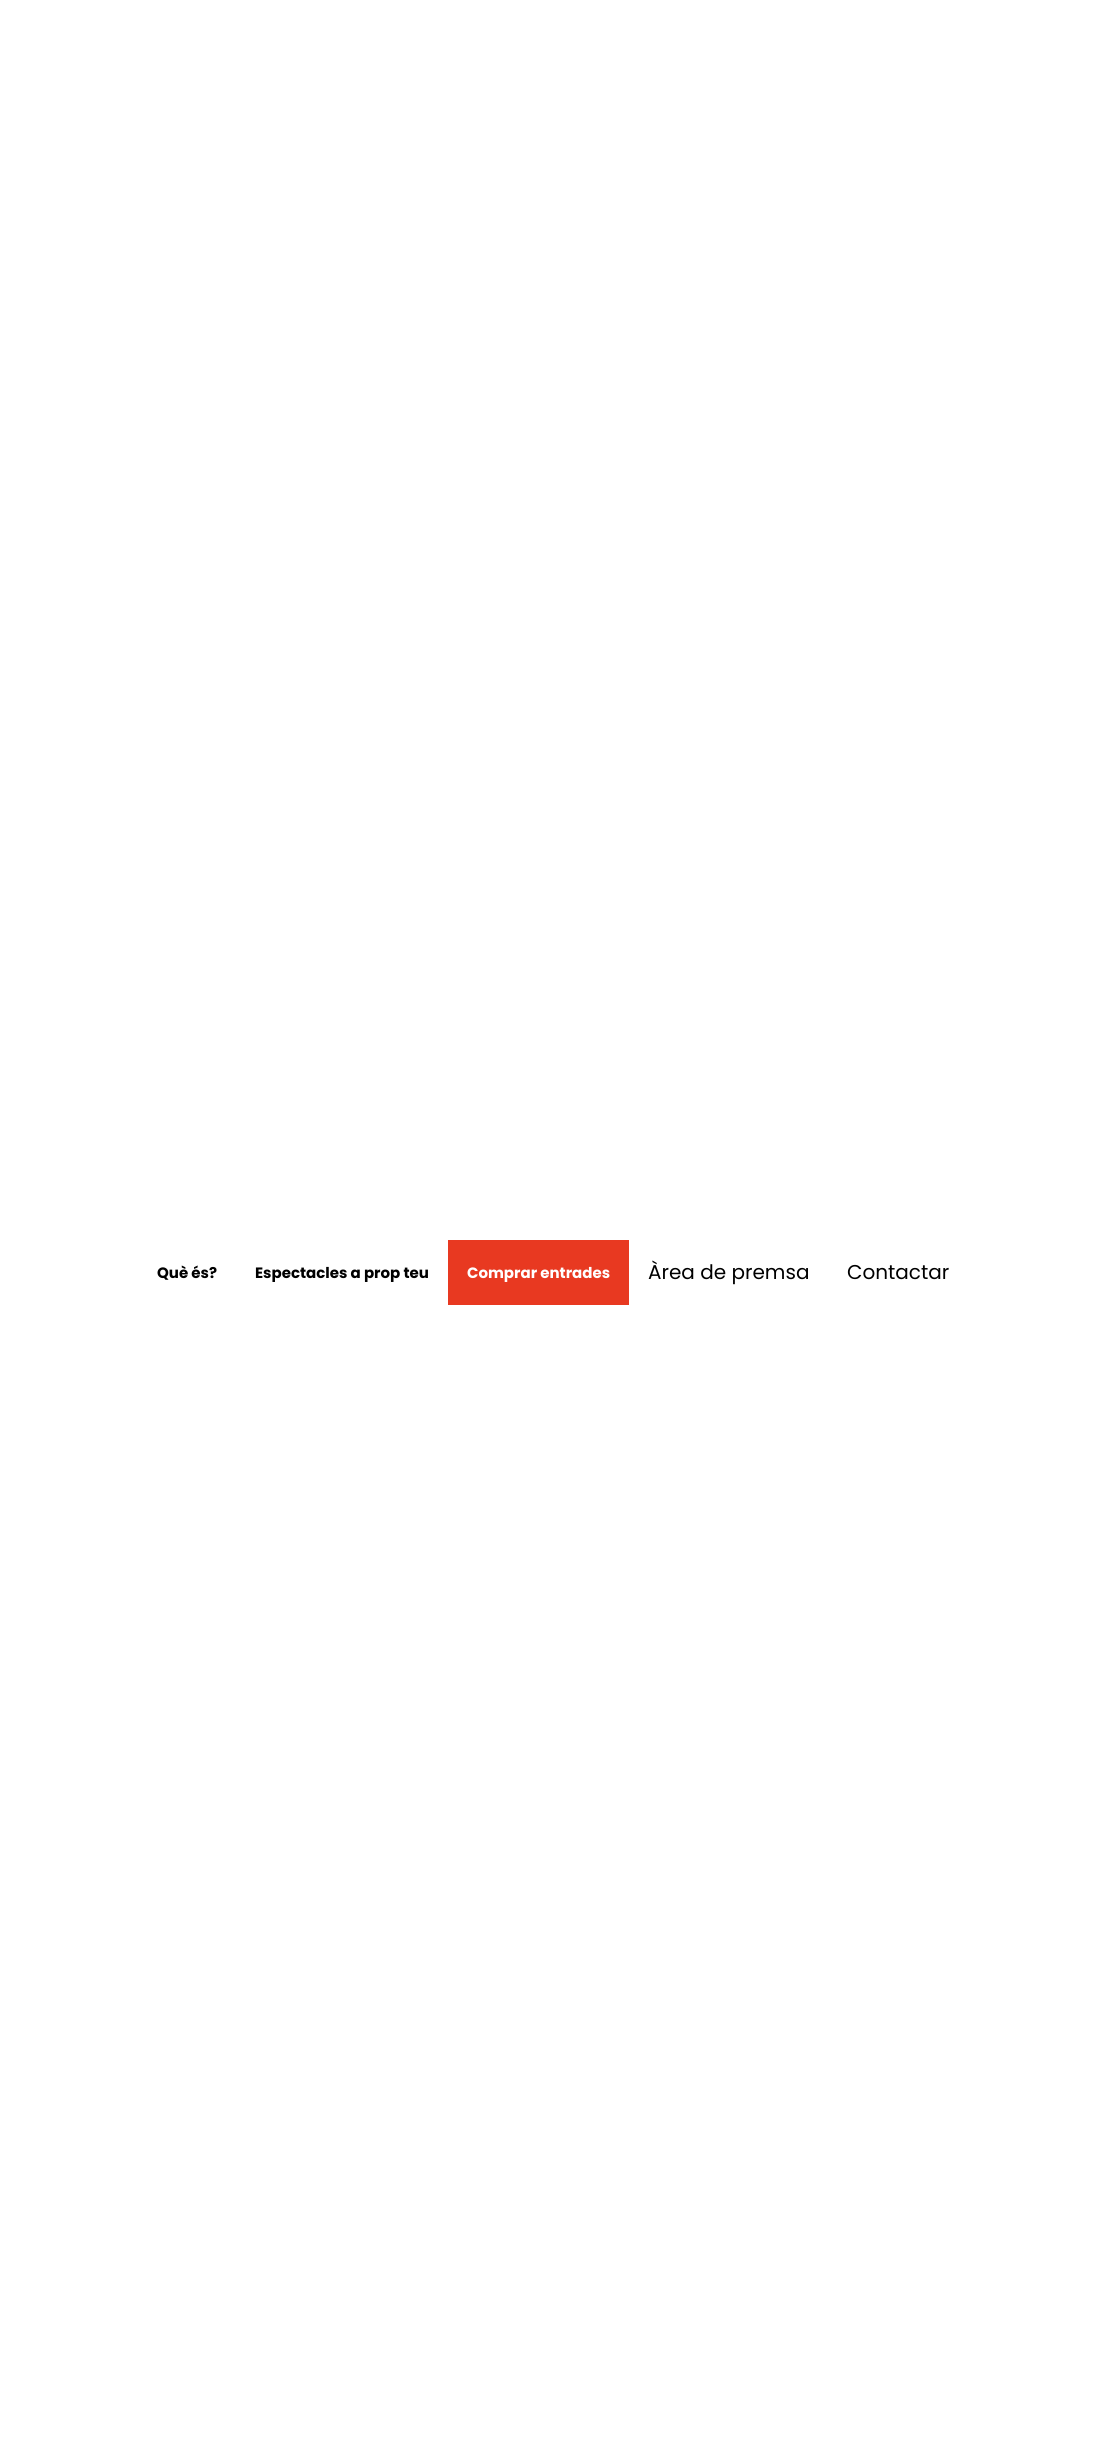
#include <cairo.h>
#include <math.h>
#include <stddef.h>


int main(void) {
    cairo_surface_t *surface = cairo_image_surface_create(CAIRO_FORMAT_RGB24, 1106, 2447);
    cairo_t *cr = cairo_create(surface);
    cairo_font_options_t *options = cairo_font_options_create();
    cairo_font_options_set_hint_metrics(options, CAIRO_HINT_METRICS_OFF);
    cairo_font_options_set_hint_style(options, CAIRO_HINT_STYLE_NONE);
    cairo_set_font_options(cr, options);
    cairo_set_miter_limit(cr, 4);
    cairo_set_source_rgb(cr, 1, 1, 1);
    cairo_paint(cr);
    cairo_select_font_face(cr, "Poppins", CAIRO_FONT_SLANT_NORMAL, CAIRO_FONT_WEIGHT_BOLD);
    cairo_set_font_size(cr, 15);
    cairo_set_source_rgb(cr, 0, 0, 0);
    cairo_move_to(cr, 157, 1278);
    cairo_show_text(cr, "Què és?");
    cairo_move_to(cr, 255, 1278);
    cairo_show_text(cr, "Espectacles a prop teu");
    cairo_set_source_rgb(cr, 0.91, 0.224, 0.129);
    cairo_rectangle(cr, 448, 1240, 181, 65);
    cairo_fill(cr);
    cairo_set_source_rgb(cr, 1, 1, 1);
    cairo_move_to(cr, 467, 1278);
    cairo_show_text(cr, "Comprar entrades");
    cairo_select_font_face(cr, "Poppins", CAIRO_FONT_SLANT_NORMAL, CAIRO_FONT_WEIGHT_NORMAL);
    cairo_set_font_size(cr, 20);
    cairo_set_source_rgb(cr, 0, 0, 0);
    cairo_move_to(cr, 648, 1279);
    cairo_show_text(cr, "Àrea de premsa");
    cairo_move_to(cr, 847, 1279);
    cairo_show_text(cr, "Contactar");
    cairo_surface_write_to_png(surface, "page.png");
    cairo_font_options_destroy(options);
    cairo_destroy(cr);
    cairo_surface_destroy(surface);
    return 0;
}
